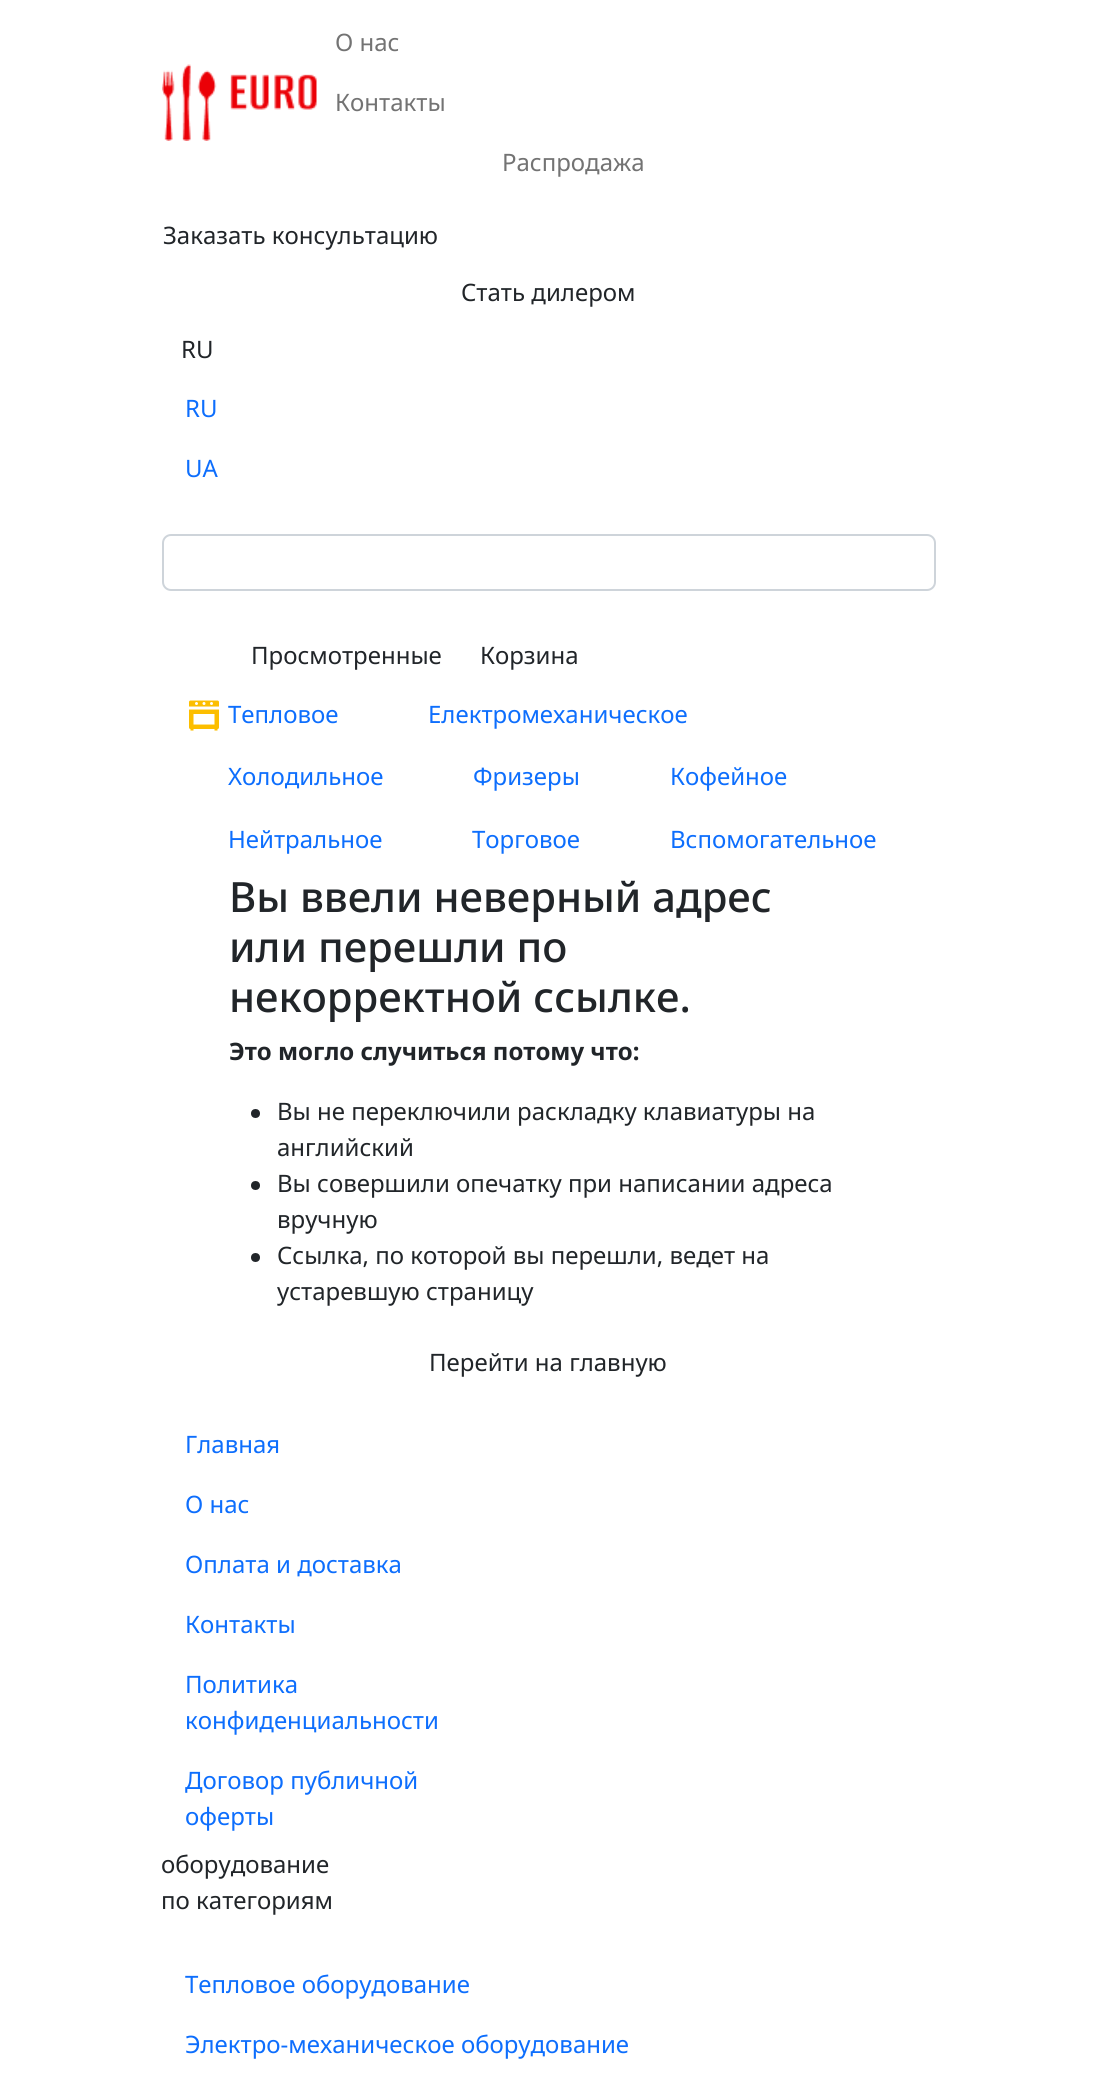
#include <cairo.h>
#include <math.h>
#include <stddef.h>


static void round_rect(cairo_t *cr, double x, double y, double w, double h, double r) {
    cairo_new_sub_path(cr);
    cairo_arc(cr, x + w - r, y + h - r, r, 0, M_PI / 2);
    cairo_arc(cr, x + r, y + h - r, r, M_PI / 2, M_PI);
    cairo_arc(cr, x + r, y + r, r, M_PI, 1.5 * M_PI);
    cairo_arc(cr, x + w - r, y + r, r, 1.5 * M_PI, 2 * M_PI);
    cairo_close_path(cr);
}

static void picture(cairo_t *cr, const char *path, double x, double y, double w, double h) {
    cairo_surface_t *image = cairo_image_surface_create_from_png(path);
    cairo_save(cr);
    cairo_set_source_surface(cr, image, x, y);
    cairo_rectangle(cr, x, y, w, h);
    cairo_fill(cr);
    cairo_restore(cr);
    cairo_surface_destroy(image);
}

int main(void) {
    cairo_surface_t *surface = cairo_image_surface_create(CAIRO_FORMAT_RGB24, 1096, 2073);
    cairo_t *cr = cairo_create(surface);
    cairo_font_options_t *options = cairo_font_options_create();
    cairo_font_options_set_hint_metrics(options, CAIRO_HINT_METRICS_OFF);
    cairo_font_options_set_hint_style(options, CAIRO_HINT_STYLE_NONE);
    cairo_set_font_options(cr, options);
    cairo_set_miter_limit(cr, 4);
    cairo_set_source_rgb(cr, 1, 1, 1);
    cairo_paint(cr);
    picture(cr, "img1.png", 162, 64, 155, 77);
    cairo_select_font_face(cr, "Noto Sans", CAIRO_FONT_SLANT_NORMAL, CAIRO_FONT_WEIGHT_NORMAL);
    cairo_set_font_size(cr, 24);
    cairo_set_source_rgb(cr, 0.451, 0.451, 0.451);
    cairo_move_to(cr, 335, 51);
    cairo_show_text(cr, "О нас");
    cairo_move_to(cr, 335, 111);
    cairo_show_text(cr, "Контакты");
    cairo_move_to(cr, 502, 171);
    cairo_show_text(cr, "Распродажа");
    cairo_set_source_rgb(cr, 0.129, 0.145, 0.161);
    cairo_move_to(cr, 163, 244);
    cairo_show_text(cr, "Заказать консультацию");
    cairo_move_to(cr, 461, 301);
    cairo_show_text(cr, "Стать дилером");
    cairo_move_to(cr, 181, 358);
    cairo_show_text(cr, "RU");
    cairo_set_source_rgb(cr, 0.051, 0.431, 0.992);
    cairo_move_to(cr, 185, 417);
    cairo_show_text(cr, "RU");
    cairo_move_to(cr, 185, 477);
    cairo_show_text(cr, "UA");
    round_rect(cr, 163, 535, 772, 55, 8);
    cairo_set_source_rgb(cr, 0.808, 0.831, 0.855);
    cairo_stroke(cr);
    cairo_set_source_rgb(cr, 0.129, 0.145, 0.161);
    cairo_move_to(cr, 251, 664);
    cairo_show_text(cr, "Просмотренные");
    cairo_move_to(cr, 480, 664);
    cairo_show_text(cr, "Корзина");
    picture(cr, "img2.png", 189, 700, 30, 31);
    cairo_set_source_rgb(cr, 0.051, 0.431, 0.992);
    cairo_move_to(cr, 228, 723);
    cairo_show_text(cr, "Тепловое");
    cairo_move_to(cr, 428, 723);
    cairo_show_text(cr, "Електромеханическое");
    cairo_move_to(cr, 228, 785);
    cairo_show_text(cr, "Холодильное");
    cairo_move_to(cr, 473, 785);
    cairo_show_text(cr, "Фризеры");
    cairo_move_to(cr, 670, 785);
    cairo_show_text(cr, "Кофейное");
    cairo_move_to(cr, 228, 848);
    cairo_show_text(cr, "Нейтральное");
    cairo_move_to(cr, 472, 848);
    cairo_show_text(cr, "Торговое");
    cairo_move_to(cr, 670, 848);
    cairo_show_text(cr, "Вспомогательное");
    cairo_select_font_face(cr, "Noto Sans Medium", CAIRO_FONT_SLANT_NORMAL, CAIRO_FONT_WEIGHT_NORMAL);
    cairo_set_font_size(cr, 41.7);
    cairo_set_source_rgb(cr, 0.129, 0.145, 0.161);
    cairo_move_to(cr, 229, 912);
    cairo_show_text(cr, "Вы ввели неверный адрес");
    cairo_move_to(cr, 229, 962);
    cairo_show_text(cr, "или перешли по");
    cairo_move_to(cr, 229, 1012);
    cairo_show_text(cr, "некорректной ссылке.");
    cairo_select_font_face(cr, "Noto Sans", CAIRO_FONT_SLANT_NORMAL, CAIRO_FONT_WEIGHT_BOLD);
    cairo_set_font_size(cr, 24);
    cairo_move_to(cr, 229, 1060);
    cairo_show_text(cr, "Это могло случиться потому что:");
    cairo_new_path(cr);
    cairo_arc(cr, 255.5, 1113.5, 4.5, 0, 2 * M_PI);
    cairo_fill(cr);
    cairo_select_font_face(cr, "Noto Sans", CAIRO_FONT_SLANT_NORMAL, CAIRO_FONT_WEIGHT_NORMAL);
    cairo_move_to(cr, 277, 1120);
    cairo_show_text(cr, "Вы не переключили раскладку клавиатуры на");
    cairo_move_to(cr, 277, 1156);
    cairo_show_text(cr, "английский");
    cairo_new_path(cr);
    cairo_arc(cr, 255.5, 1185.5, 4.5, 0, 2 * M_PI);
    cairo_fill(cr);
    cairo_move_to(cr, 277, 1192);
    cairo_show_text(cr, "Вы совершили опечатку при написании адреса");
    cairo_move_to(cr, 277, 1228);
    cairo_show_text(cr, "вручную");
    cairo_new_path(cr);
    cairo_arc(cr, 255.5, 1257.5, 4.5, 0, 2 * M_PI);
    cairo_fill(cr);
    cairo_move_to(cr, 277, 1264);
    cairo_show_text(cr, "Ссылка, по которой вы перешли, ведет на");
    cairo_move_to(cr, 277, 1300);
    cairo_show_text(cr, "устаревшую страницу");
    cairo_move_to(cr, 429, 1371);
    cairo_show_text(cr, "Перейти на главную");
    cairo_set_source_rgb(cr, 0.051, 0.431, 0.992);
    cairo_move_to(cr, 185, 1453);
    cairo_show_text(cr, "Главная");
    cairo_move_to(cr, 185, 1513);
    cairo_show_text(cr, "О нас");
    cairo_move_to(cr, 185, 1573);
    cairo_show_text(cr, "Оплата и доставка");
    cairo_move_to(cr, 185, 1633);
    cairo_show_text(cr, "Контакты");
    cairo_move_to(cr, 185, 1693);
    cairo_show_text(cr, "Политика");
    cairo_move_to(cr, 185, 1729);
    cairo_show_text(cr, "конфиденциальности");
    cairo_move_to(cr, 185, 1789);
    cairo_show_text(cr, "Договор публичной");
    cairo_move_to(cr, 185, 1825);
    cairo_show_text(cr, "оферты");
    cairo_set_source_rgb(cr, 0.129, 0.145, 0.161);
    cairo_move_to(cr, 161, 1873);
    cairo_show_text(cr, "оборудование");
    cairo_move_to(cr, 161, 1909);
    cairo_show_text(cr, "по категориям");
    cairo_set_source_rgb(cr, 0.051, 0.431, 0.992);
    cairo_move_to(cr, 185, 1993);
    cairo_show_text(cr, "Тепловое оборудование");
    cairo_move_to(cr, 185, 2053);
    cairo_show_text(cr, "Электро-механическое оборудование");
    cairo_surface_write_to_png(surface, "page.png");
    cairo_font_options_destroy(options);
    cairo_destroy(cr);
    cairo_surface_destroy(surface);
    return 0;
}
